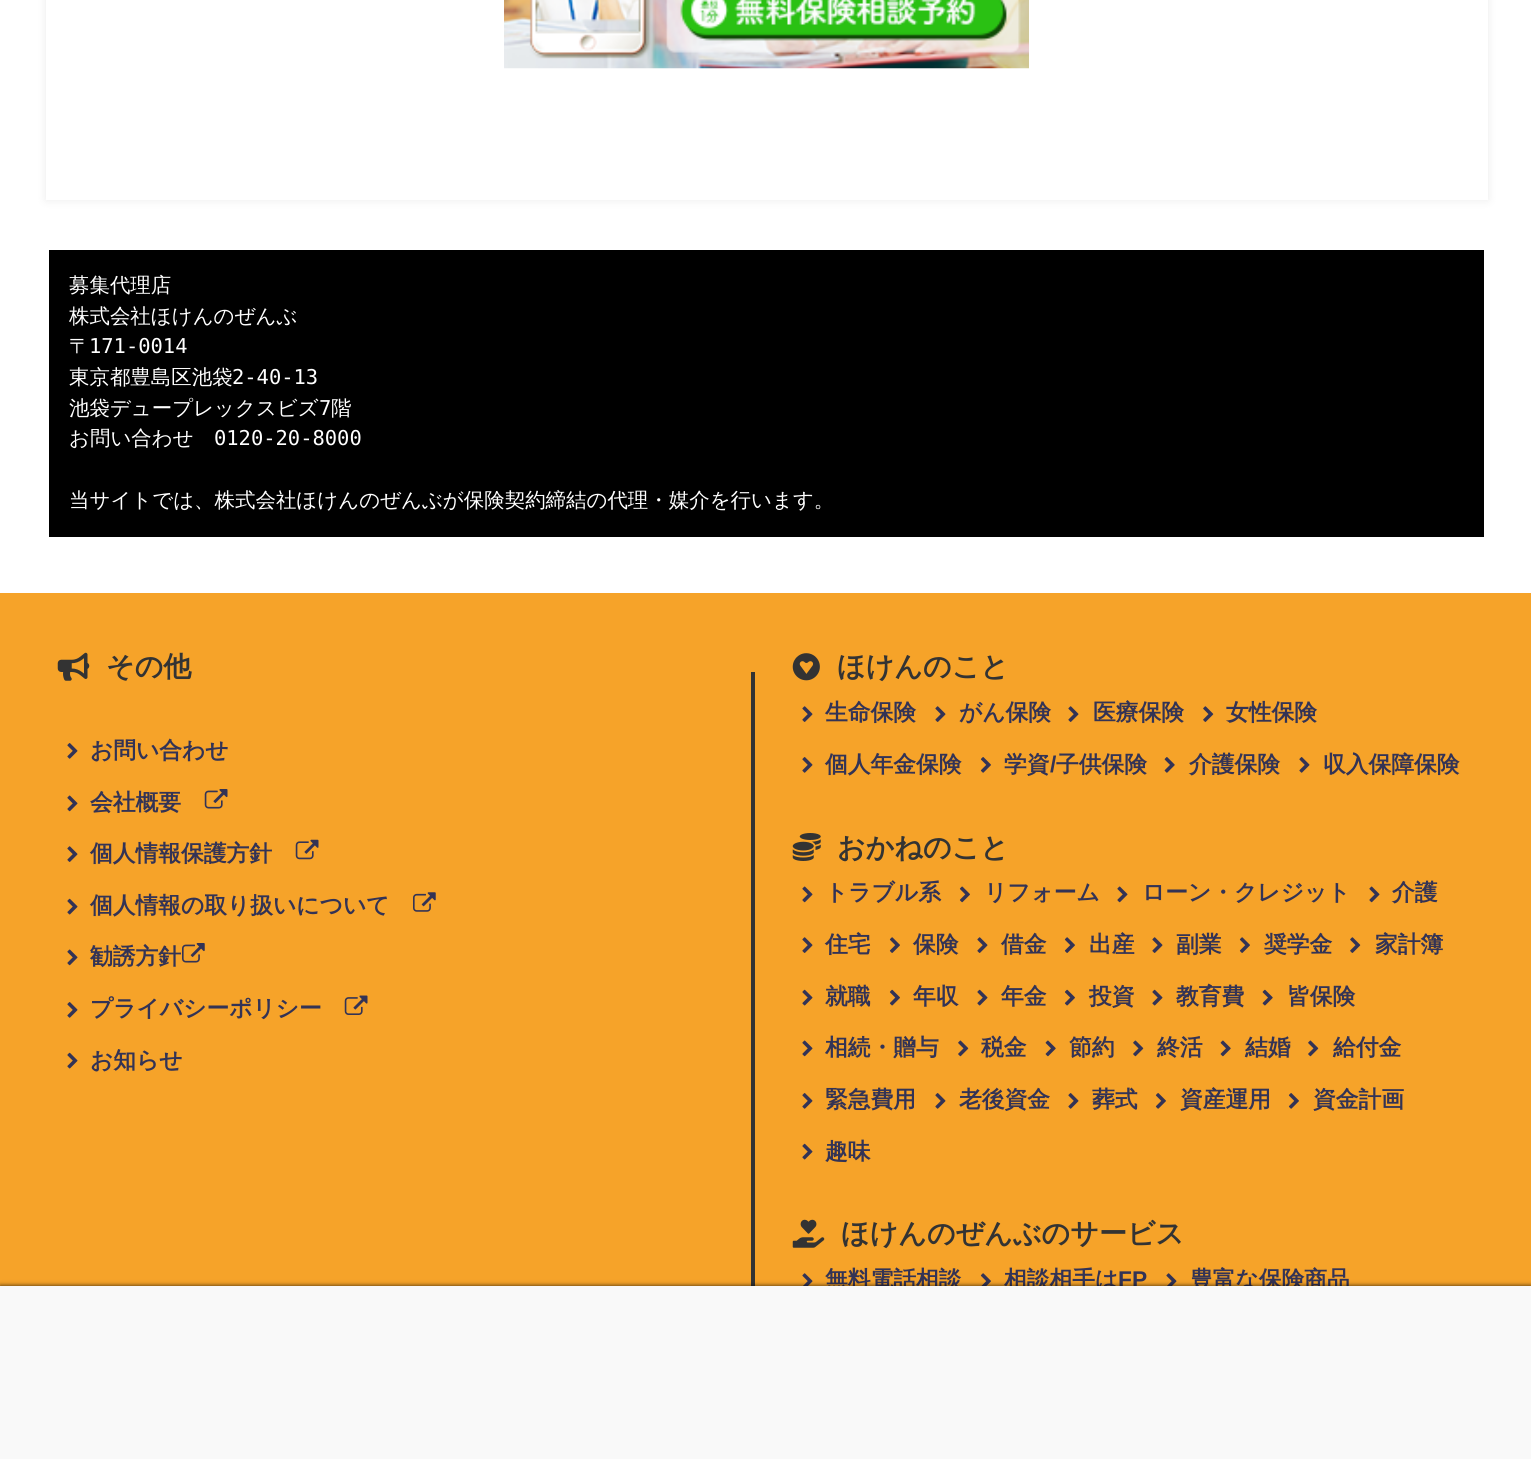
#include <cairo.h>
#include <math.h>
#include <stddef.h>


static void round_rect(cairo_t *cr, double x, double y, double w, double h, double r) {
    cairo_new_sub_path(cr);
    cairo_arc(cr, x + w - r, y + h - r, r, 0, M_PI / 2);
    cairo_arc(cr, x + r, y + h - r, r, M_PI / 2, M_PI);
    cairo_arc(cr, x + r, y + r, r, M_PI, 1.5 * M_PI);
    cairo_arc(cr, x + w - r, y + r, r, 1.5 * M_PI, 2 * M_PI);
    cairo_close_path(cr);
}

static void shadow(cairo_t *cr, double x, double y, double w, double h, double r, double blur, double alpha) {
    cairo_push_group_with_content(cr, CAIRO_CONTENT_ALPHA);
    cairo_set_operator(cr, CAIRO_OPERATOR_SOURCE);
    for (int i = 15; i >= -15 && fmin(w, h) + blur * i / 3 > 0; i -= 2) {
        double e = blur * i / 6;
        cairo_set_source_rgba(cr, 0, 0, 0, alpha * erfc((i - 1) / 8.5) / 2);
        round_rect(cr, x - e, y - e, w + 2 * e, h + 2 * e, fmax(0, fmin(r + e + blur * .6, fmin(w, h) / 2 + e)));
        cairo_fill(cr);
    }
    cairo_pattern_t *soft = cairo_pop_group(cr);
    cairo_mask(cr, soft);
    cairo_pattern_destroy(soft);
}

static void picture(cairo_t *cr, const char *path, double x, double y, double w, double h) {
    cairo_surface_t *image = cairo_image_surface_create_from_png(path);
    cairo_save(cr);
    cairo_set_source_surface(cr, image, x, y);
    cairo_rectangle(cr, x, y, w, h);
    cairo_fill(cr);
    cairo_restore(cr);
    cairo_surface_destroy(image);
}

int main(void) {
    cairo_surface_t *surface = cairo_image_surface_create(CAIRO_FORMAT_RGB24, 1531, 1459);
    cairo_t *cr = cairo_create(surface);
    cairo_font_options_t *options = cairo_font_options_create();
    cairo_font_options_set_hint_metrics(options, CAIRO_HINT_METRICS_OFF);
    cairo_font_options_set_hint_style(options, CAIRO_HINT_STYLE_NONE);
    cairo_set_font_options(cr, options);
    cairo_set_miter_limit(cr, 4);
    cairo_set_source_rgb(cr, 1, 1, 1);
    cairo_paint(cr);
    cairo_set_source_rgb(cr, 0.588, 0.588, 0.588);
    shadow(cr, 46, -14, 1442, 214, 0, 4.5, 0.2);
    cairo_set_source_rgb(cr, 1, 1, 1);
    cairo_rectangle(cr, 46, 0, 1442, 200);
    cairo_fill(cr);
    picture(cr, "img1.png", 504, 0, 525, 69);
    cairo_set_source_rgb(cr, 0, 0, 0);
    cairo_rectangle(cr, 49, 250, 1435, 287);
    cairo_fill(cr);
    cairo_select_font_face(cr, "WenQuanYi Zen Hei Medium", CAIRO_FONT_SLANT_NORMAL, CAIRO_FONT_WEIGHT_NORMAL);
    cairo_set_font_size(cr, 20.45);
    cairo_set_source_rgb(cr, 1, 1, 1);
    cairo_move_to(cr, 69, 292);
    cairo_show_text(cr, "募集代理店");
    cairo_move_to(cr, 69, 323);
    cairo_show_text(cr, "株式会社ほけんのぜんぶ");
    cairo_move_to(cr, 69, 353);
    cairo_show_text(cr, "〒");
    cairo_select_font_face(cr, "DejaVu Sans Mono", CAIRO_FONT_SLANT_NORMAL, CAIRO_FONT_WEIGHT_NORMAL);
    cairo_move_to(cr, 89, 353);
    cairo_show_text(cr, "171-0014");
    cairo_select_font_face(cr, "WenQuanYi Zen Hei Medium", CAIRO_FONT_SLANT_NORMAL, CAIRO_FONT_WEIGHT_NORMAL);
    cairo_move_to(cr, 69, 384);
    cairo_show_text(cr, "東京都豊島区池袋");
    cairo_select_font_face(cr, "DejaVu Sans Mono", CAIRO_FONT_SLANT_NORMAL, CAIRO_FONT_WEIGHT_NORMAL);
    cairo_move_to(cr, 232, 384);
    cairo_show_text(cr, "2-40-13");
    cairo_select_font_face(cr, "WenQuanYi Zen Hei Medium", CAIRO_FONT_SLANT_NORMAL, CAIRO_FONT_WEIGHT_NORMAL);
    cairo_move_to(cr, 69, 415);
    cairo_show_text(cr, "池袋デュープレックスビズ");
    cairo_select_font_face(cr, "DejaVu Sans Mono", CAIRO_FONT_SLANT_NORMAL, CAIRO_FONT_WEIGHT_NORMAL);
    cairo_move_to(cr, 319, 415);
    cairo_show_text(cr, "7");
    cairo_select_font_face(cr, "WenQuanYi Zen Hei Medium", CAIRO_FONT_SLANT_NORMAL, CAIRO_FONT_WEIGHT_NORMAL);
    cairo_move_to(cr, 331, 415);
    cairo_show_text(cr, "階");
    cairo_move_to(cr, 69, 445);
    cairo_show_text(cr, "お問い合わせ");
    cairo_select_font_face(cr, "DejaVu Sans Mono", CAIRO_FONT_SLANT_NORMAL, CAIRO_FONT_WEIGHT_NORMAL);
    cairo_move_to(cr, 214, 445);
    cairo_show_text(cr, "0120-20-8000");
    cairo_select_font_face(cr, "WenQuanYi Zen Hei Medium", CAIRO_FONT_SLANT_NORMAL, CAIRO_FONT_WEIGHT_NORMAL);
    cairo_move_to(cr, 69, 507);
    cairo_show_text(cr, "当サイトでは、株式会社ほけんのぜんぶが保険契約締結の代理・媒介を行います。");
    cairo_set_source_rgb(cr, 0.961, 0.639, 0.161);
    cairo_rectangle(cr, 0, 593, 1531, 693);
    cairo_fill(cr);
    picture(cr, "img2.png", 57, 652, 33, 29);
    cairo_select_font_face(cr, "WenQuanYi Zen Hei", CAIRO_FONT_SLANT_NORMAL, CAIRO_FONT_WEIGHT_BOLD);
    cairo_set_font_size(cr, 28);
    cairo_set_source_rgb(cr, 0.2, 0.2, 0.2);
    cairo_move_to(cr, 106, 676);
    cairo_show_text(cr, "その他");
    picture(cr, "img3.png", 67, 743, 11, 16);
    cairo_set_font_size(cr, 22.75);
    cairo_set_source_rgb(cr, 0.2, 0.2, 0.333);
    cairo_move_to(cr, 90, 758);
    cairo_show_text(cr, "お問い合わせ");
    picture(cr, "img4.png", 67, 795, 11, 17);
    cairo_move_to(cr, 90, 810);
    cairo_show_text(cr, "会社概要");
    picture(cr, "img5.png", 204, 789, 24, 20);
    picture(cr, "img6.png", 67, 846, 11, 16);
    cairo_move_to(cr, 90, 861);
    cairo_show_text(cr, "個人情報保護方針");
    picture(cr, "img7.png", 295, 839, 24, 21);
    picture(cr, "img8.png", 67, 898, 11, 17);
    cairo_move_to(cr, 90, 913);
    cairo_show_text(cr, "個人情報の取り扱いについて");
    picture(cr, "img9.png", 413, 892, 23, 20);
    picture(cr, "img10.png", 67, 949, 11, 17);
    cairo_move_to(cr, 90, 964);
    cairo_show_text(cr, "勧誘方針");
    picture(cr, "img11.png", 182, 943, 23, 20);
    picture(cr, "img12.png", 67, 1002, 11, 16);
    cairo_move_to(cr, 90, 1016);
    cairo_show_text(cr, "プライバシーポリシー");
    picture(cr, "img13.png", 344, 995, 24, 20);
    picture(cr, "img14.png", 67, 1052, 11, 17);
    cairo_move_to(cr, 90, 1068);
    cairo_show_text(cr, "お知らせ");
    cairo_set_source_rgb(cr, 0.2, 0.2, 0.2);
    cairo_rectangle(cr, 751, 672, 4, 614);
    cairo_fill(cr);
    picture(cr, "img15.png", 792, 653, 28, 28);
    cairo_set_font_size(cr, 28);
    cairo_move_to(cr, 837, 676);
    cairo_show_text(cr, "ほけんのこと");
    picture(cr, "img6.png", 802, 706, 11, 16);
    cairo_set_font_size(cr, 22.75);
    cairo_set_source_rgb(cr, 0.2, 0.2, 0.333);
    cairo_move_to(cr, 825, 720);
    cairo_show_text(cr, "生命保険");
    picture(cr, "img16.png", 935, 706, 11, 16);
    cairo_move_to(cr, 959, 720);
    cairo_show_text(cr, "がん保険");
    picture(cr, "img6.png", 1068, 706, 11, 16);
    cairo_move_to(cr, 1093, 720);
    cairo_show_text(cr, "医療保険");
    picture(cr, "img17.png", 1203, 706, 11, 16);
    cairo_move_to(cr, 1226, 720);
    cairo_show_text(cr, "女性保険");
    picture(cr, "img3.png", 802, 757, 11, 16);
    cairo_move_to(cr, 825, 772);
    cairo_show_text(cr, "個人年金保険");
    picture(cr, "img18.png", 980, 757, 11, 16);
    cairo_move_to(cr, 1004, 772);
    cairo_show_text(cr, "学資");
    cairo_select_font_face(cr, "Liberation Sans", CAIRO_FONT_SLANT_NORMAL, CAIRO_FONT_WEIGHT_BOLD);
    cairo_move_to(cr, 1050, 772);
    cairo_show_text(cr, "/");
    cairo_select_font_face(cr, "WenQuanYi Zen Hei", CAIRO_FONT_SLANT_NORMAL, CAIRO_FONT_WEIGHT_BOLD);
    cairo_move_to(cr, 1056, 772);
    cairo_show_text(cr, "子供保険");
    picture(cr, "img19.png", 1164, 757, 11, 16);
    cairo_move_to(cr, 1189, 772);
    cairo_show_text(cr, "介護保険");
    picture(cr, "img3.png", 1299, 757, 11, 16);
    cairo_move_to(cr, 1323, 772);
    cairo_show_text(cr, "収入保障保険");
    picture(cr, "img20.png", 792, 833, 29, 28);
    cairo_set_font_size(cr, 28);
    cairo_set_source_rgb(cr, 0.2, 0.2, 0.2);
    cairo_move_to(cr, 837, 857);
    cairo_show_text(cr, "おかねのこと");
    picture(cr, "img10.png", 802, 886, 11, 17);
    cairo_set_font_size(cr, 22.75);
    cairo_set_source_rgb(cr, 0.2, 0.2, 0.333);
    cairo_move_to(cr, 825, 900);
    cairo_show_text(cr, "トラブル系");
    picture(cr, "img21.png", 959, 886, 11, 17);
    cairo_move_to(cr, 984, 900);
    cairo_show_text(cr, "リフォーム");
    picture(cr, "img10.png", 1117, 886, 11, 17);
    cairo_move_to(cr, 1142, 900);
    cairo_show_text(cr, "ローン・クレジット");
    picture(cr, "img10.png", 1369, 886, 11, 17);
    cairo_move_to(cr, 1392, 900);
    cairo_show_text(cr, "介護");
    picture(cr, "img22.png", 802, 937, 11, 16);
    cairo_move_to(cr, 825, 952);
    cairo_show_text(cr, "住宅");
    picture(cr, "img23.png", 889, 937, 11, 16);
    cairo_move_to(cr, 913, 952);
    cairo_show_text(cr, "保険");
    picture(cr, "img24.png", 977, 937, 11, 16);
    cairo_move_to(cr, 1001, 952);
    cairo_show_text(cr, "借金");
    picture(cr, "img23.png", 1064, 937, 11, 16);
    cairo_move_to(cr, 1089, 952);
    cairo_show_text(cr, "出産");
    picture(cr, "img22.png", 1152, 937, 11, 16);
    cairo_move_to(cr, 1176, 952);
    cairo_show_text(cr, "副業");
    picture(cr, "img23.png", 1239, 937, 11, 16);
    cairo_move_to(cr, 1264, 952);
    cairo_show_text(cr, "奨学金");
    picture(cr, "img25.png", 1350, 937, 11, 16);
    cairo_move_to(cr, 1375, 952);
    cairo_show_text(cr, "家計簿");
    picture(cr, "img8.png", 802, 989, 11, 17);
    cairo_move_to(cr, 825, 1004);
    cairo_show_text(cr, "就職");
    picture(cr, "img26.png", 889, 989, 11, 17);
    cairo_move_to(cr, 913, 1004);
    cairo_show_text(cr, "年収");
    picture(cr, "img8.png", 977, 989, 11, 17);
    cairo_move_to(cr, 1001, 1004);
    cairo_show_text(cr, "年金");
    picture(cr, "img26.png", 1064, 989, 11, 17);
    cairo_move_to(cr, 1089, 1004);
    cairo_show_text(cr, "投資");
    picture(cr, "img8.png", 1152, 989, 11, 17);
    cairo_move_to(cr, 1176, 1004);
    cairo_show_text(cr, "教育費");
    picture(cr, "img27.png", 1262, 989, 11, 17);
    cairo_move_to(cr, 1287, 1004);
    cairo_show_text(cr, "皆保険");
    picture(cr, "img4.png", 802, 1040, 11, 17);
    cairo_move_to(cr, 825, 1055);
    cairo_show_text(cr, "相続・贈与");
    picture(cr, "img28.png", 958, 1040, 11, 17);
    cairo_move_to(cr, 981, 1055);
    cairo_show_text(cr, "税金");
    picture(cr, "img29.png", 1045, 1040, 11, 17);
    cairo_move_to(cr, 1069, 1055);
    cairo_show_text(cr, "節約");
    picture(cr, "img30.png", 1133, 1040, 11, 17);
    cairo_move_to(cr, 1157, 1055);
    cairo_show_text(cr, "終活");
    picture(cr, "img29.png", 1220, 1040, 11, 17);
    cairo_move_to(cr, 1245, 1055);
    cairo_show_text(cr, "結婚");
    picture(cr, "img30.png", 1308, 1040, 11, 17);
    cairo_move_to(cr, 1333, 1055);
    cairo_show_text(cr, "給付金");
    picture(cr, "img3.png", 802, 1093, 11, 16);
    cairo_move_to(cr, 825, 1107);
    cairo_show_text(cr, "緊急費用");
    picture(cr, "img31.png", 935, 1093, 11, 16);
    cairo_move_to(cr, 959, 1107);
    cairo_show_text(cr, "老後資金");
    picture(cr, "img3.png", 1068, 1093, 11, 16);
    cairo_move_to(cr, 1092, 1107);
    cairo_show_text(cr, "葬式");
    picture(cr, "img32.png", 1155, 1093, 11, 16);
    cairo_move_to(cr, 1180, 1107);
    cairo_show_text(cr, "資産運用");
    picture(cr, "img32.png", 1288, 1093, 11, 16);
    cairo_move_to(cr, 1313, 1107);
    cairo_show_text(cr, "資金計画");
    picture(cr, "img14.png", 802, 1143, 11, 17);
    cairo_move_to(cr, 825, 1159);
    cairo_show_text(cr, "趣味");
    picture(cr, "img33.png", 792, 1219, 33, 29);
    cairo_set_font_size(cr, 28);
    cairo_set_source_rgb(cr, 0.2, 0.2, 0.2);
    cairo_move_to(cr, 841, 1243);
    cairo_show_text(cr, "ほけんのぜんぶのサービス");
    picture(cr, "img34.png", 802, 1273, 11, 13);
    cairo_set_font_size(cr, 22.75);
    cairo_set_source_rgb(cr, 0.2, 0.2, 0.333);
    cairo_move_to(cr, 825, 1287);
    cairo_show_text(cr, "無料電話相談");
    picture(cr, "img35.png", 980, 1273, 11, 13);
    cairo_move_to(cr, 1004, 1287);
    cairo_show_text(cr, "相談相手は");
    cairo_select_font_face(cr, "Liberation Sans", CAIRO_FONT_SLANT_NORMAL, CAIRO_FONT_WEIGHT_BOLD);
    cairo_move_to(cr, 1118, 1287);
    cairo_show_text(cr, "FP");
    picture(cr, "img34.png", 1166, 1273, 11, 13);
    cairo_select_font_face(cr, "WenQuanYi Zen Hei", CAIRO_FONT_SLANT_NORMAL, CAIRO_FONT_WEIGHT_BOLD);
    cairo_move_to(cr, 1190, 1287);
    cairo_show_text(cr, "豊富な保険商品");
    cairo_set_source_rgb(cr, 0, 0, 0);
    shadow(cr, 0, 1286, 1531, 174, 0, 2.5, 0.8);
    cairo_set_source_rgb(cr, 0.976, 0.976, 0.976);
    cairo_rectangle(cr, 0, 1286, 1531, 173);
    cairo_fill(cr);
    cairo_surface_write_to_png(surface, "page.png");
    cairo_font_options_destroy(options);
    cairo_destroy(cr);
    cairo_surface_destroy(surface);
    return 0;
}
